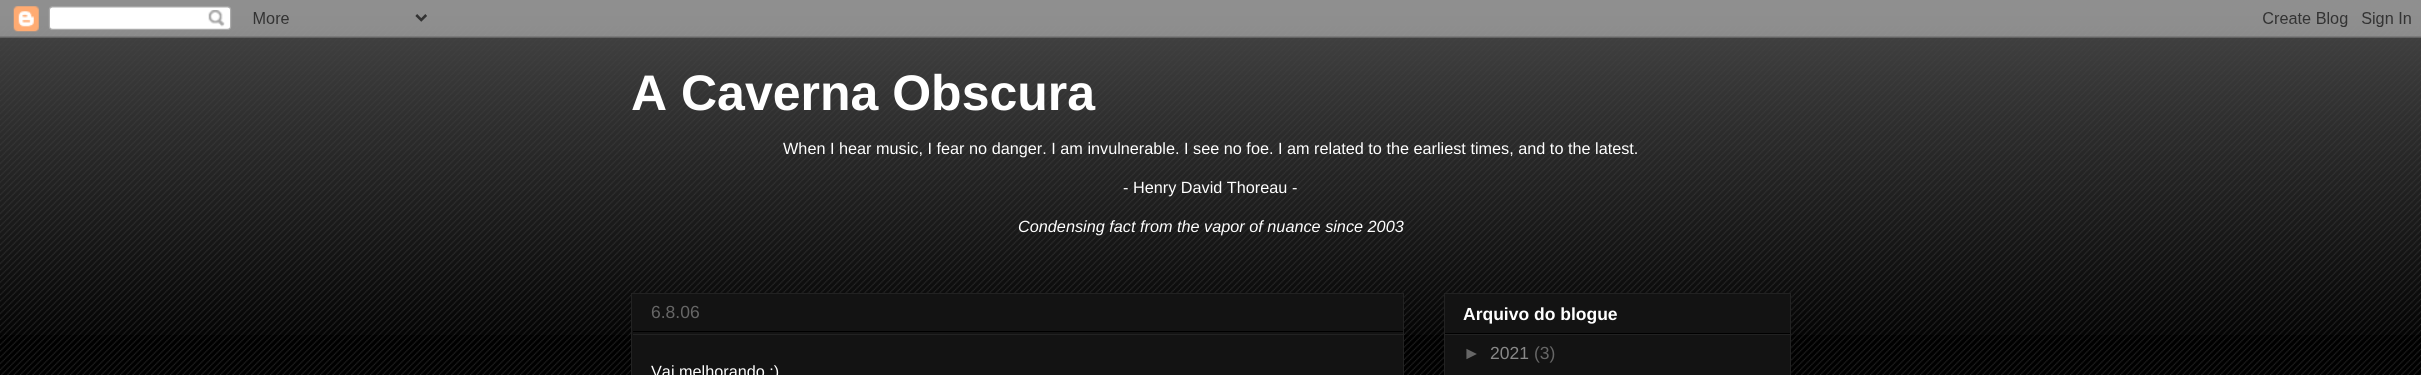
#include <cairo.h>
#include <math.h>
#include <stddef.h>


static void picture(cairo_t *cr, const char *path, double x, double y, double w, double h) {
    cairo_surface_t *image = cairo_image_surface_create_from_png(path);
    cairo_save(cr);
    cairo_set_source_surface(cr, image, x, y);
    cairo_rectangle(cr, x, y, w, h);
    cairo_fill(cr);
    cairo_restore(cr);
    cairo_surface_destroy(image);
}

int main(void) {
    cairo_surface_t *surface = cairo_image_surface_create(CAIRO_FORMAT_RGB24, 2421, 375);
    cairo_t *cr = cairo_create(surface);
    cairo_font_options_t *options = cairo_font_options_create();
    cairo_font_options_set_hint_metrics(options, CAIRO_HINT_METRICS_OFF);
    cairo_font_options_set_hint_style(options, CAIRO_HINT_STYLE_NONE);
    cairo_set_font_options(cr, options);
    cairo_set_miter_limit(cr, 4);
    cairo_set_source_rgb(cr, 0, 0, 0);
    cairo_paint(cr);
    picture(cr, "img1.png", 0, 16, 2421, 359);
    picture(cr, "img2.png", 0, 0, 2421, 335);
    picture(cr, "img3.png", 0, 0, 2421, 38);
    cairo_select_font_face(cr, "Liberation Sans", CAIRO_FONT_SLANT_NORMAL, CAIRO_FONT_WEIGHT_BOLD);
    cairo_set_font_size(cr, 50);
    cairo_set_source_rgb(cr, 1, 1, 1);
    cairo_move_to(cr, 631, 110);
    cairo_show_text(cr, "A Caverna Obscura");
    cairo_select_font_face(cr, "Liberation Sans", CAIRO_FONT_SLANT_NORMAL, CAIRO_FONT_WEIGHT_NORMAL);
    cairo_set_font_size(cr, 16.25);
    cairo_move_to(cr, 783, 154);
    cairo_show_text(cr, "When I hear music, I fear no danger. I am invulnerable. I see no foe. I am related to the earliest times, and to the latest.");
    cairo_move_to(cr, 1123, 193);
    cairo_show_text(cr, "- Henry David Thoreau -");
    cairo_select_font_face(cr, "Liberation Sans", CAIRO_FONT_SLANT_ITALIC, CAIRO_FONT_WEIGHT_NORMAL);
    cairo_move_to(cr, 1018, 232);
    cairo_show_text(cr, "Condensing fact from the vapor of nuance since 2003");
    cairo_set_source_rgb(cr, 0.078, 0.078, 0.078);
    cairo_rectangle(cr, 631.5, 293.5, 772, 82);
    cairo_fill_preserve(cr);
    cairo_set_source_rgb(cr, 0.133, 0.133, 0.133);
    cairo_set_line_width(cr, 1);
    cairo_stroke(cr);
    cairo_set_source_rgb(cr, 0, 0, 0);
    cairo_rectangle(cr, 633, 331, 770, 1);
    cairo_fill(cr);
    cairo_select_font_face(cr, "Liberation Sans", CAIRO_FONT_SLANT_NORMAL, CAIRO_FONT_WEIGHT_NORMAL);
    cairo_set_font_size(cr, 17.5);
    cairo_set_source_rgb(cr, 0.4, 0.4, 0.4);
    cairo_move_to(cr, 651, 318);
    cairo_show_text(cr, "6.8.06");
    cairo_set_source_rgb(cr, 0.133, 0.133, 0.133);
    cairo_rectangle(cr, 633, 334, 770, 1);
    cairo_fill(cr);
    cairo_set_font_size(cr, 16.25);
    cairo_set_source_rgb(cr, 1, 1, 1);
    cairo_move_to(cr, 651, 377);
    cairo_show_text(cr, "Vai melhorando :)");
    cairo_set_source_rgb(cr, 0.078, 0.078, 0.078);
    cairo_rectangle(cr, 1444.5, 293.5, 346, 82);
    cairo_fill_preserve(cr);
    cairo_set_source_rgb(cr, 0.133, 0.133, 0.133);
    cairo_stroke(cr);
    cairo_set_source_rgb(cr, 0, 0, 0);
    cairo_rectangle(cr, 1445, 333, 345, 1);
    cairo_fill(cr);
    cairo_select_font_face(cr, "Liberation Sans", CAIRO_FONT_SLANT_NORMAL, CAIRO_FONT_WEIGHT_BOLD);
    cairo_set_font_size(cr, 17.5);
    cairo_set_source_rgb(cr, 1, 1, 1);
    cairo_move_to(cr, 1463, 320);
    cairo_show_text(cr, "Arquivo do blogue");
    cairo_set_source_rgb(cr, 0.133, 0.133, 0.133);
    cairo_rectangle(cr, 1445, 334, 345, 1);
    cairo_fill(cr);
    cairo_select_font_face(cr, "Liberation Sans", CAIRO_FONT_SLANT_NORMAL, CAIRO_FONT_WEIGHT_NORMAL);
    cairo_set_source_rgb(cr, 0.4, 0.4, 0.4);
    cairo_move_to(cr, 1463, 359);
    cairo_show_text(cr, "►");
    cairo_set_source_rgb(cr, 0.533, 0.533, 0.533);
    cairo_move_to(cr, 1490, 359);
    cairo_show_text(cr, "2021");
    cairo_set_source_rgb(cr, 0.4, 0.4, 0.4);
    cairo_move_to(cr, 1534, 359);
    cairo_show_text(cr, "(3)");
    cairo_surface_write_to_png(surface, "page.png");
    cairo_font_options_destroy(options);
    cairo_destroy(cr);
    cairo_surface_destroy(surface);
    return 0;
}
